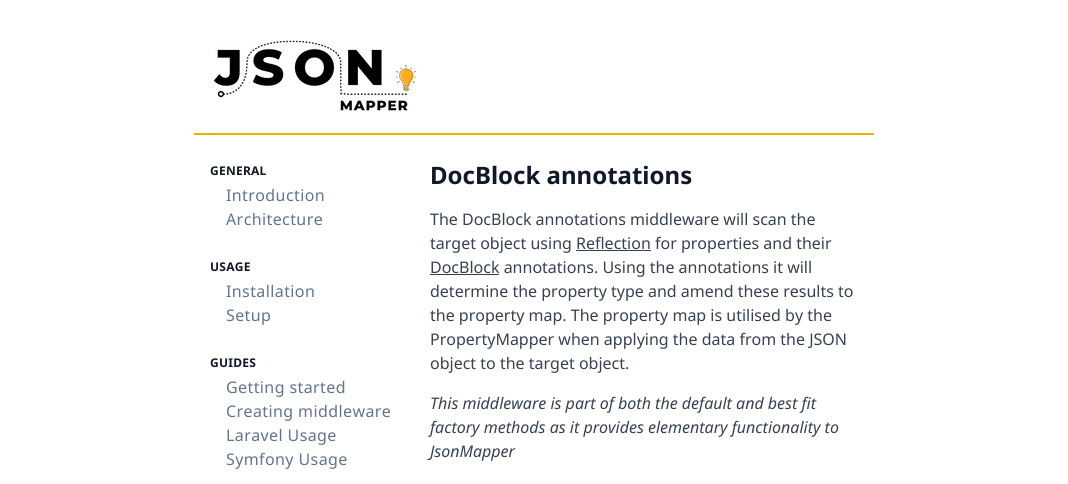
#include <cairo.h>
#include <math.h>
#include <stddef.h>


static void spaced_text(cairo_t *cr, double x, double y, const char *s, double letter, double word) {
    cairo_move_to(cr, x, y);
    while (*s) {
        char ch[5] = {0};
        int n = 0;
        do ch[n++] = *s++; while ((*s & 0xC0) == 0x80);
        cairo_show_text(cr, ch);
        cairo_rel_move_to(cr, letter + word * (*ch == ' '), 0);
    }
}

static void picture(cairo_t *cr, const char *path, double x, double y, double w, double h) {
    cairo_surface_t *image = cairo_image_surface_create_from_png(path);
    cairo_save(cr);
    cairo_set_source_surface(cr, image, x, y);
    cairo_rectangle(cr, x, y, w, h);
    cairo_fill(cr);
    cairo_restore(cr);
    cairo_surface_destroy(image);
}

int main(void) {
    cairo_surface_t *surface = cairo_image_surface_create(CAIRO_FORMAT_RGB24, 1068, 484);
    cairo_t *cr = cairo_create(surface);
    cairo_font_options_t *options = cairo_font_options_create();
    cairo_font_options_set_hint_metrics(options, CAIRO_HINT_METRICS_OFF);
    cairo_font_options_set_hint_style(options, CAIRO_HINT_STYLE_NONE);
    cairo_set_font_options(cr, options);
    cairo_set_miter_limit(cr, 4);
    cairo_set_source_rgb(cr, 1, 1, 1);
    cairo_paint(cr);
    cairo_set_source_rgb(cr, 0.918, 0.702, 0.031);
    cairo_rectangle(cr, 194, 133, 680, 2);
    cairo_fill(cr);
    picture(cr, "img1.png", 214, 40, 203, 71);
    cairo_select_font_face(cr, "Noto Sans", CAIRO_FONT_SLANT_NORMAL, CAIRO_FONT_WEIGHT_BOLD);
    cairo_set_font_size(cr, 12);
    cairo_set_source_rgb(cr, 0.067, 0.094, 0.153);
    spaced_text(cr, 210, 175, "GENERAL", 0.25, 0);
    cairo_select_font_face(cr, "Noto Sans", CAIRO_FONT_SLANT_NORMAL, CAIRO_FONT_WEIGHT_NORMAL);
    cairo_set_font_size(cr, 16);
    cairo_set_source_rgb(cr, 0.392, 0.455, 0.545);
    spaced_text(cr, 226, 201, "Introduction", 0.4, 0);
    spaced_text(cr, 226, 225, "Architecture", 0.4, 0);
    cairo_select_font_face(cr, "Noto Sans", CAIRO_FONT_SLANT_NORMAL, CAIRO_FONT_WEIGHT_BOLD);
    cairo_set_font_size(cr, 12);
    cairo_set_source_rgb(cr, 0.067, 0.094, 0.153);
    spaced_text(cr, 210, 271, "USAGE", 0.25, 0);
    cairo_select_font_face(cr, "Noto Sans", CAIRO_FONT_SLANT_NORMAL, CAIRO_FONT_WEIGHT_NORMAL);
    cairo_set_font_size(cr, 16);
    cairo_set_source_rgb(cr, 0.392, 0.455, 0.545);
    spaced_text(cr, 226, 297, "Installation", 0.4, 0);
    spaced_text(cr, 226, 321, "Setup", 0.4, 0);
    cairo_select_font_face(cr, "Noto Sans", CAIRO_FONT_SLANT_NORMAL, CAIRO_FONT_WEIGHT_BOLD);
    cairo_set_font_size(cr, 12);
    cairo_set_source_rgb(cr, 0.067, 0.094, 0.153);
    spaced_text(cr, 210, 367, "GUIDES", 0.25, 0);
    cairo_select_font_face(cr, "Noto Sans", CAIRO_FONT_SLANT_NORMAL, CAIRO_FONT_WEIGHT_NORMAL);
    cairo_set_font_size(cr, 16);
    cairo_set_source_rgb(cr, 0.392, 0.455, 0.545);
    spaced_text(cr, 226, 393, "Getting started", 0.4, 0);
    spaced_text(cr, 226, 417, "Creating middleware", 0.4, 0);
    spaced_text(cr, 226, 441, "Laravel Usage", 0.4, 0);
    spaced_text(cr, 226, 465, "Symfony Usage", 0.4, 0);
    cairo_select_font_face(cr, "Noto Sans", CAIRO_FONT_SLANT_NORMAL, CAIRO_FONT_WEIGHT_BOLD);
    cairo_set_font_size(cr, 24);
    cairo_set_source_rgb(cr, 0.067, 0.094, 0.153);
    cairo_move_to(cr, 430, 184);
    cairo_show_text(cr, "DocBlock annotations");
    cairo_select_font_face(cr, "Noto Sans", CAIRO_FONT_SLANT_NORMAL, CAIRO_FONT_WEIGHT_NORMAL);
    cairo_set_font_size(cr, 16);
    cairo_set_source_rgb(cr, 0.216, 0.255, 0.318);
    cairo_move_to(cr, 430, 225);
    cairo_show_text(cr, "The DocBlock annotations middleware will scan the");
    cairo_move_to(cr, 430, 249);
    cairo_show_text(cr, "target object using Reflection for properties and their");
    cairo_rectangle(cr, 576, 250, 75, 1);
    cairo_fill(cr);
    cairo_rectangle(cr, 430, 274, 69, 1);
    cairo_fill(cr);
    cairo_move_to(cr, 430, 273);
    cairo_show_text(cr, "DocBlock annotations. Using the annotations it will");
    cairo_move_to(cr, 430, 297);
    cairo_show_text(cr, "determine the property type and amend these results to");
    cairo_move_to(cr, 430, 321);
    cairo_show_text(cr, "the property map. The property map is utilised by the");
    cairo_move_to(cr, 430, 345);
    cairo_show_text(cr, "PropertyMapper when applying the data from the JSON");
    cairo_move_to(cr, 430, 369);
    cairo_show_text(cr, "object to the target object.");
    cairo_select_font_face(cr, "Noto Sans", CAIRO_FONT_SLANT_ITALIC, CAIRO_FONT_WEIGHT_NORMAL);
    cairo_move_to(cr, 430, 409);
    cairo_show_text(cr, "This middleware is part of both the default and best fit");
    cairo_move_to(cr, 430, 433);
    cairo_show_text(cr, "factory methods as it provides elementary functionality to");
    cairo_move_to(cr, 430, 457);
    cairo_show_text(cr, "JsonMapper");
    cairo_surface_write_to_png(surface, "page.png");
    cairo_font_options_destroy(options);
    cairo_destroy(cr);
    cairo_surface_destroy(surface);
    return 0;
}
